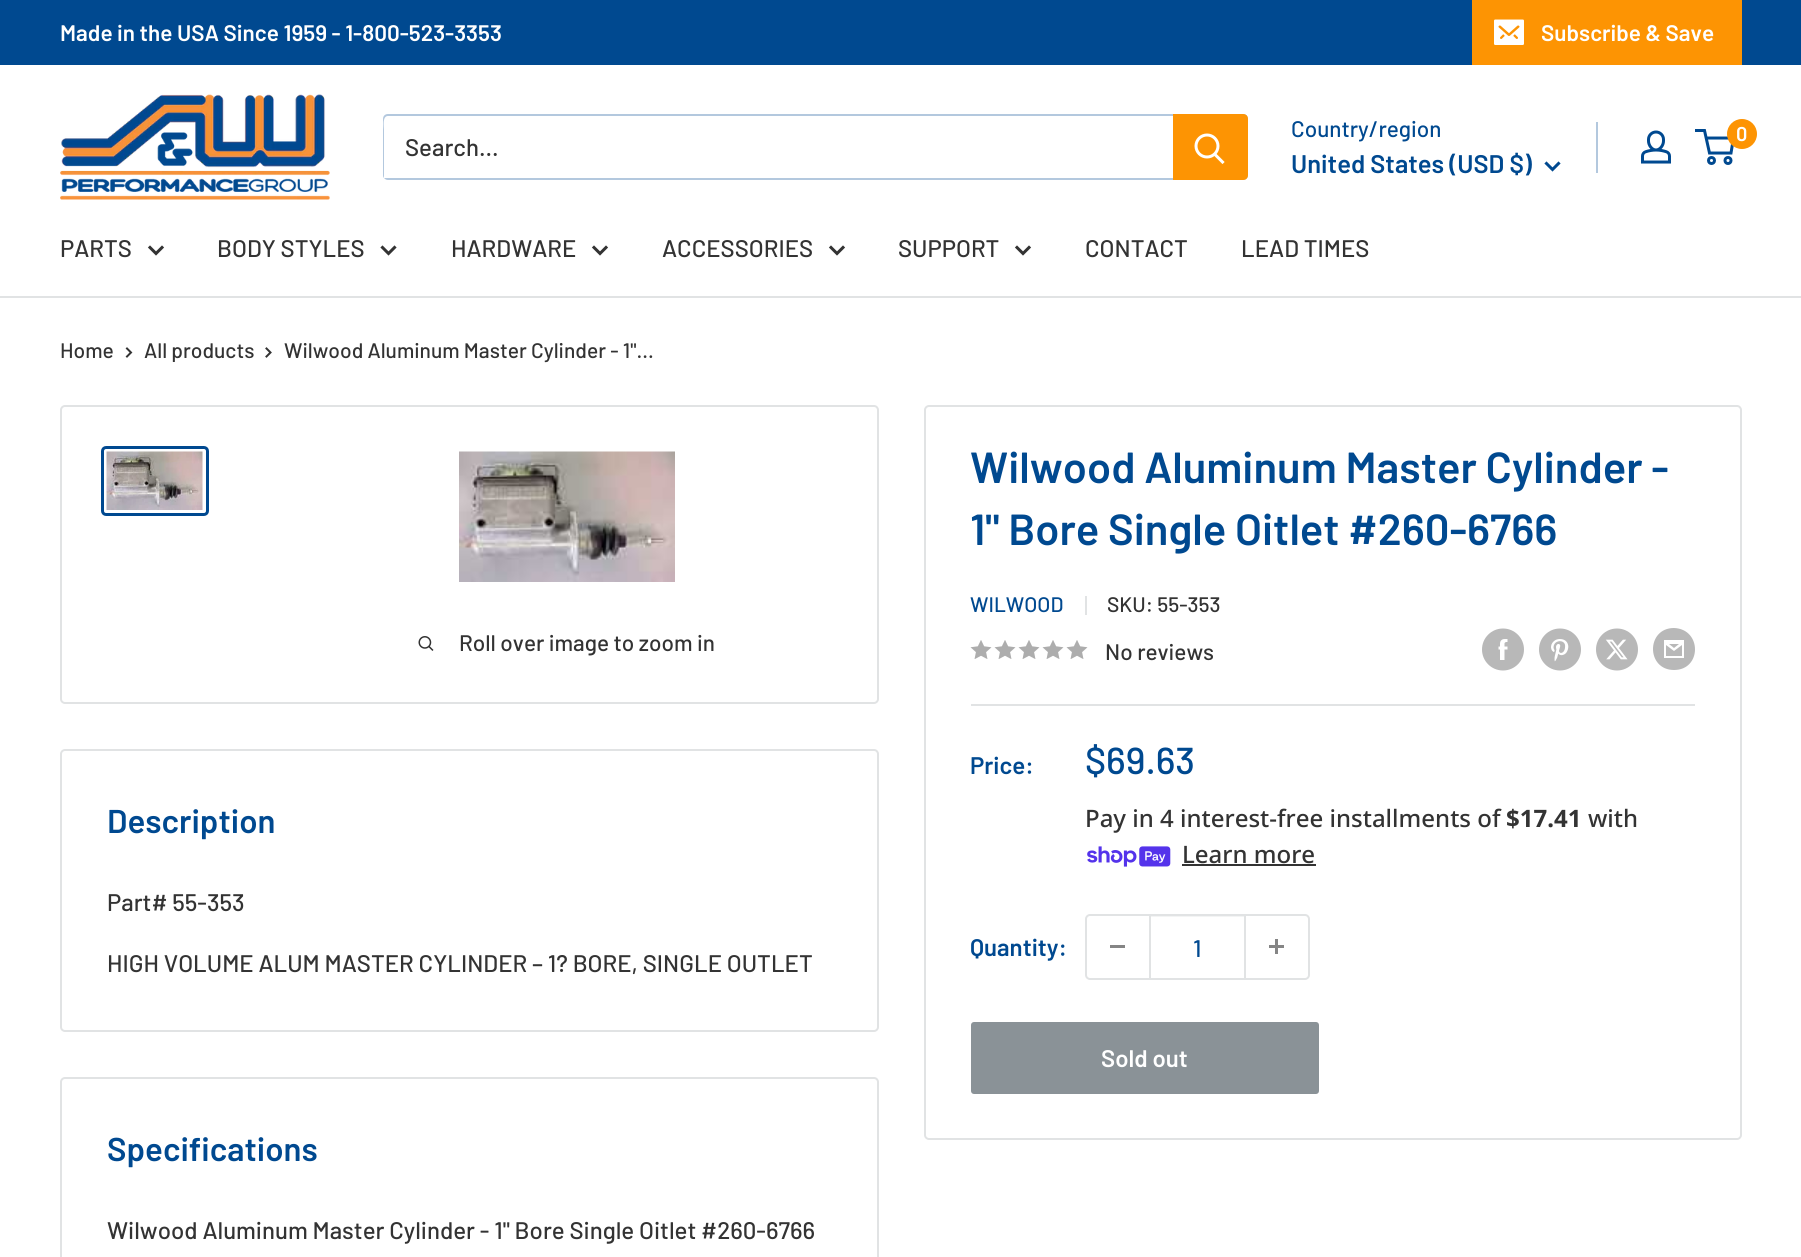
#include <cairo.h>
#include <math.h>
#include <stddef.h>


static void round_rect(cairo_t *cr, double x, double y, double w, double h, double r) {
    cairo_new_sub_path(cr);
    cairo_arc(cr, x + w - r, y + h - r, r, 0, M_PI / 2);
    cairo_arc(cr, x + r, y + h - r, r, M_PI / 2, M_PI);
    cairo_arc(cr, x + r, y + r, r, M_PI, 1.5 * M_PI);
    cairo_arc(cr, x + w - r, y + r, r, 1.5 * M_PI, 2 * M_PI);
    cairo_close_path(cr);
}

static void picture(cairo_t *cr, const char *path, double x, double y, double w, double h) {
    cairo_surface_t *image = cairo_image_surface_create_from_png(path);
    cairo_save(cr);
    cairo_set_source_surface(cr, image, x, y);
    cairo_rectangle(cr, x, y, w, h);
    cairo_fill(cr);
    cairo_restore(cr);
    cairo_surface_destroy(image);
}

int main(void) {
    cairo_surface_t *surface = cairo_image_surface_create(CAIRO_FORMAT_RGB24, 1801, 1257);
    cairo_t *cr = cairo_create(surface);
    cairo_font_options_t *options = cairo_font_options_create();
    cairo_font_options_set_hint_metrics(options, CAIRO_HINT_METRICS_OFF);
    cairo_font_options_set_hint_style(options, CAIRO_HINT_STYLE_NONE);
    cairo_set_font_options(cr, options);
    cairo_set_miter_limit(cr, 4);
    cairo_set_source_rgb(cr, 1, 1, 1);
    cairo_paint(cr);
    cairo_set_source_rgb(cr, 0, 0.286, 0.565);
    cairo_rectangle(cr, 0, 0, 1801, 65);
    cairo_fill(cr);
    cairo_select_font_face(cr, "Barlow SemiBold", CAIRO_FONT_SLANT_NORMAL, CAIRO_FONT_WEIGHT_NORMAL);
    cairo_set_font_size(cr, 22.5);
    cairo_set_source_rgb(cr, 1, 1, 1);
    cairo_move_to(cr, 60, 41);
    cairo_show_text(cr, "Made in the USA Since 1959 - 1-800-523-3353");
    cairo_set_source_rgb(cr, 0.992, 0.58, 0.012);
    cairo_new_path(cr);
    cairo_move_to(cr, 1472, 63);
    cairo_line_to(cr, 1472, 65);
    cairo_line_to(cr, 1742, 65);
    cairo_line_to(cr, 1742, 2);
    cairo_line_to(cr, 1742, 63);
    cairo_close_path(cr);
    cairo_fill(cr);
    cairo_rectangle(cr, 1472, 0, 270, 63);
    cairo_fill(cr);
    picture(cr, "img1.png", 1494, 19, 30, 26);
    cairo_set_source_rgb(cr, 1, 1, 1);
    cairo_move_to(cr, 1541, 41);
    cairo_show_text(cr, "Subscribe & Save");
    picture(cr, "img2.png", 60, 94, 270, 106);
    cairo_set_source_rgb(cr, 0.702, 0.784, 0.871);
    cairo_new_path(cr);
    cairo_move_to(cr, 384, 178);
    cairo_curve_to(cr, 385, 179, 386, 180, 388, 180);
    cairo_line_to(cr, 1243, 180);
    cairo_curve_to(cr, 1246, 180, 1248, 178, 1248, 175);
    cairo_line_to(cr, 1248, 119);
    cairo_curve_to(cr, 1248, 117, 1247, 115, 1245, 115);
    cairo_line_to(cr, 1246, 117);
    cairo_line_to(cr, 1246, 174);
    cairo_curve_to(cr, 1246, 176, 1244, 178, 1242, 178);
    cairo_line_to(cr, 386, 178);
    cairo_close_path(cr);
    cairo_fill(cr);
    cairo_set_source_rgba(cr, 0, 0.286, 0.565, 0.3);
    cairo_new_path(cr);
    cairo_move_to(cr, 388, 116);
    cairo_line_to(cr, 1245, 116);
    cairo_line_to(cr, 1247, 117);
    cairo_curve_to(cr, 1247, 115, 1245, 114, 1243, 114);
    cairo_line_to(cr, 388, 114);
    cairo_curve_to(cr, 385, 114, 383, 116, 383, 119);
    cairo_line_to(cr, 383, 175);
    cairo_curve_to(cr, 383, 176, 383, 177, 384, 178);
    cairo_line_to(cr, 384, 130);
    cairo_curve_to(cr, 384, 127, 382, 116, 388, 116);
    cairo_close_path(cr);
    cairo_fill(cr);
    cairo_select_font_face(cr, "Barlow Medium", CAIRO_FONT_SLANT_NORMAL, CAIRO_FONT_WEIGHT_NORMAL);
    cairo_set_font_size(cr, 24);
    cairo_set_source_rgb(cr, 0.2, 0.2, 0.2);
    cairo_move_to(cr, 405, 156);
    cairo_show_text(cr, "Search...");
    cairo_set_source_rgb(cr, 0.992, 0.58, 0.012);
    cairo_new_path(cr);
    cairo_move_to(cr, 1173, 114);
    cairo_line_to(cr, 1243, 114);
    cairo_curve_to(cr, 1246, 114, 1248, 116, 1248, 119);
    cairo_line_to(cr, 1248, 175);
    cairo_curve_to(cr, 1248, 178, 1246, 180, 1243, 180);
    cairo_line_to(cr, 1173, 180);
    cairo_close_path(cr);
    cairo_fill(cr);
    cairo_new_path(cr);
    cairo_move_to(cr, 1222.5, 162);
    cairo_line_to(cr, 1215, 154.5);
    cairo_set_source_rgb(cr, 1, 1, 1);
    cairo_set_line_width(cr, 3);
    cairo_set_line_cap(cr, CAIRO_LINE_CAP_SQUARE);
    cairo_stroke(cr);
    cairo_arc(cr, 1207, 146, 11, 0, 2 * M_PI);
    cairo_set_line_cap(cr, CAIRO_LINE_CAP_BUTT);
    cairo_stroke(cr);
    cairo_set_font_size(cr, 22.5);
    cairo_set_source_rgb(cr, 0, 0.286, 0.565);
    cairo_move_to(cr, 1291, 137);
    cairo_show_text(cr, "Country/region");
    cairo_select_font_face(cr, "Barlow SemiBold", CAIRO_FONT_SLANT_NORMAL, CAIRO_FONT_WEIGHT_NORMAL);
    cairo_set_font_size(cr, 25.5);
    cairo_move_to(cr, 1291, 173);
    cairo_show_text(cr, "United States (USD $)");
    cairo_new_path(cr);
    cairo_move_to(cr, 1558.5, 163.5);
    cairo_line_to(cr, 1552.5, 169.5);
    cairo_line_to(cr, 1546.5, 163.5);
    cairo_set_line_cap(cr, CAIRO_LINE_CAP_SQUARE);
    cairo_stroke(cr);
    cairo_set_source_rgb(cr, 0.702, 0.784, 0.871);
    cairo_rectangle(cr, 1596, 122, 2, 51);
    cairo_fill(cr);
    picture(cr, "img3.png", 1641, 130, 30, 34);
    cairo_arc(cr, 1711.5, 160.5, 3, 0, 2 * M_PI);
    cairo_set_source_rgb(cr, 0, 0.286, 0.565);
    cairo_set_line_cap(cr, CAIRO_LINE_CAP_BUTT);
    cairo_stroke(cr);
    cairo_arc(cr, 1728, 160.5, 3, 0, 2 * M_PI);
    cairo_stroke(cr);
    cairo_new_path(cr);
    cairo_move_to(cr, 1706, 138);
    cairo_line_to(cr, 1733.5, 138);
    cairo_line_to(cr, 1731, 153);
    cairo_line_to(cr, 1709.5, 153);
    cairo_line_to(cr, 1704.5, 130.5);
    cairo_line_to(cr, 1695, 130.5);
    cairo_stroke(cr);
    cairo_set_source_rgb(cr, 0.992, 0.58, 0.012);
    cairo_arc(cr, 1742, 134, 15, 0, 2 * M_PI);
    cairo_fill(cr);
    cairo_set_font_size(cr, 20);
    cairo_set_source_rgb(cr, 1, 1, 1);
    cairo_move_to(cr, 1736, 141);
    cairo_show_text(cr, "0");
    cairo_set_source_rgb(cr, 0.882, 0.89, 0.894);
    cairo_rectangle(cr, 0, 296, 1801, 2);
    cairo_fill(cr);
    cairo_select_font_face(cr, "Barlow Medium", CAIRO_FONT_SLANT_NORMAL, CAIRO_FONT_WEIGHT_NORMAL);
    cairo_set_font_size(cr, 24);
    cairo_set_source_rgb(cr, 0.2, 0.2, 0.2);
    cairo_move_to(cr, 60, 257);
    cairo_show_text(cr, "PARTS");
    cairo_new_path(cr);
    cairo_move_to(cr, 162, 247.5);
    cairo_line_to(cr, 156, 253.5);
    cairo_line_to(cr, 150, 247.5);
    cairo_set_line_cap(cr, CAIRO_LINE_CAP_SQUARE);
    cairo_stroke(cr);
    cairo_move_to(cr, 217, 257);
    cairo_show_text(cr, "BODY STYLES");
    cairo_new_path(cr);
    cairo_move_to(cr, 394.5, 247.5);
    cairo_line_to(cr, 388.5, 253.5);
    cairo_line_to(cr, 382.5, 247.5);
    cairo_stroke(cr);
    cairo_move_to(cr, 451, 257);
    cairo_show_text(cr, "HARDWARE");
    cairo_new_path(cr);
    cairo_move_to(cr, 606, 247.5);
    cairo_line_to(cr, 600, 253.5);
    cairo_line_to(cr, 594, 247.5);
    cairo_stroke(cr);
    cairo_move_to(cr, 662, 257);
    cairo_show_text(cr, "ACCESSORIES");
    cairo_new_path(cr);
    cairo_move_to(cr, 843, 247.5);
    cairo_line_to(cr, 837, 253.5);
    cairo_line_to(cr, 831, 247.5);
    cairo_stroke(cr);
    cairo_move_to(cr, 898, 257);
    cairo_show_text(cr, "SUPPORT");
    cairo_new_path(cr);
    cairo_move_to(cr, 1029, 247.5);
    cairo_line_to(cr, 1023, 253.5);
    cairo_line_to(cr, 1017, 247.5);
    cairo_stroke(cr);
    cairo_move_to(cr, 1085, 257);
    cairo_show_text(cr, "CONTACT");
    cairo_move_to(cr, 1241, 257);
    cairo_show_text(cr, "LEAD TIMES");
    cairo_set_font_size(cr, 21);
    cairo_move_to(cr, 60, 358);
    cairo_show_text(cr, "Home");
    cairo_new_path(cr);
    cairo_move_to(cr, 127, 348.5);
    cairo_line_to(cr, 131, 352.5);
    cairo_line_to(cr, 127, 356.5);
    cairo_set_line_width(cr, 2);
    cairo_stroke(cr);
    cairo_move_to(cr, 144, 358);
    cairo_show_text(cr, "All products");
    cairo_new_path(cr);
    cairo_move_to(cr, 266.5, 348.5);
    cairo_line_to(cr, 270.5, 352.5);
    cairo_line_to(cr, 266.5, 356.5);
    cairo_stroke(cr);
    cairo_move_to(cr, 284, 358);
    cairo_show_text(cr, "Wilwood Aluminum Master Cylinder - 1\"...");
    round_rect(cr, 61, 406, 817, 297, 4);
    cairo_set_source_rgb(cr, 0.882, 0.89, 0.894);
    cairo_set_line_cap(cr, CAIRO_LINE_CAP_BUTT);
    cairo_stroke(cr);
    round_rect(cr, 102.5, 447.5, 105, 67, 3.5);
    cairo_set_source_rgb(cr, 0, 0.286, 0.565);
    cairo_set_line_width(cr, 3);
    cairo_stroke(cr);
    picture(cr, "img4.png", 106, 451, 97, 59);
    picture(cr, "img5.png", 459, 451, 216, 131);
    picture(cr, "img6.png", 418, 636, 16, 15);
    cairo_set_font_size(cr, 22.5);
    cairo_set_source_rgb(cr, 0.2, 0.2, 0.2);
    cairo_move_to(cr, 459, 651);
    cairo_show_text(cr, "Roll over image to zoom in");
    round_rect(cr, 925, 406, 816, 733, 4);
    cairo_set_source_rgb(cr, 0.882, 0.89, 0.894);
    cairo_set_line_width(cr, 2);
    cairo_stroke(cr);
    cairo_select_font_face(cr, "Barlow SemiBold", CAIRO_FONT_SLANT_NORMAL, CAIRO_FONT_WEIGHT_NORMAL);
    cairo_set_font_size(cr, 43.5);
    cairo_set_source_rgb(cr, 0, 0.286, 0.565);
    cairo_move_to(cr, 970, 483);
    cairo_show_text(cr, "Wilwood Aluminum Master Cylinder -");
    cairo_move_to(cr, 970, 545);
    cairo_show_text(cr, "1\" Bore Single Oitlet #260-6766");
    cairo_select_font_face(cr, "Barlow Medium", CAIRO_FONT_SLANT_NORMAL, CAIRO_FONT_WEIGHT_NORMAL);
    cairo_set_font_size(cr, 21);
    cairo_move_to(cr, 970, 612);
    cairo_show_text(cr, "WILWOOD");
    cairo_set_source_rgb(cr, 0.882, 0.89, 0.894);
    cairo_rectangle(cr, 1085, 596, 2, 19);
    cairo_fill(cr);
    cairo_set_source_rgb(cr, 0.2, 0.2, 0.2);
    cairo_move_to(cr, 1107, 612);
    cairo_show_text(cr, "SKU: 55-353");
    picture(cr, "img7.png", 970, 640, 22, 19);
    picture(cr, "img7.png", 994, 640, 22, 19);
    picture(cr, "img7.png", 1018, 640, 22, 19);
    picture(cr, "img7.png", 1042, 640, 22, 19);
    picture(cr, "img7.png", 1066, 640, 22, 19);
    cairo_set_font_size(cr, 22.5);
    cairo_move_to(cr, 1105, 660);
    cairo_show_text(cr, "No reviews");
    picture(cr, "img8.png", 1482, 628, 42, 43);
    picture(cr, "img9.png", 1539, 628, 42, 43);
    picture(cr, "img10.png", 1596, 628, 42, 43);
    cairo_set_source_rgb(cr, 0.722, 0.722, 0.722);
    cairo_new_path(cr);
    cairo_move_to(cr, 1674, 670);
    cairo_curve_to(cr, 1646, 670, 1646, 628, 1674, 628);
    cairo_curve_to(cr, 1702, 629, 1702, 670, 1674, 670);
    cairo_close_path(cr);
    cairo_move_to(cr, 1669, 644);
    cairo_line_to(cr, 1679, 644);
    cairo_line_to(cr, 1674, 648);
    cairo_close_path(cr);
    cairo_move_to(cr, 1682, 645);
    cairo_line_to(cr, 1682, 656);
    cairo_line_to(cr, 1666, 656);
    cairo_line_to(cr, 1666, 645);
    cairo_line_to(cr, 1674, 651);
    cairo_close_path(cr);
    cairo_move_to(cr, 1684, 640);
    cairo_line_to(cr, 1664, 640);
    cairo_line_to(cr, 1664, 658);
    cairo_line_to(cr, 1684, 658);
    cairo_close_path(cr);
    cairo_fill(cr);
    cairo_set_source_rgb(cr, 0.882, 0.89, 0.894);
    cairo_rectangle(cr, 971, 704, 724, 2);
    cairo_fill(cr);
    cairo_select_font_face(cr, "Barlow SemiBold", CAIRO_FONT_SLANT_NORMAL, CAIRO_FONT_WEIGHT_NORMAL);
    cairo_set_font_size(cr, 24);
    cairo_set_source_rgb(cr, 0, 0.286, 0.565);
    cairo_move_to(cr, 970, 774);
    cairo_show_text(cr, "Price:");
    cairo_select_font_face(cr, "Barlow Medium", CAIRO_FONT_SLANT_NORMAL, CAIRO_FONT_WEIGHT_NORMAL);
    cairo_set_font_size(cr, 37.5);
    cairo_move_to(cr, 1085, 774);
    cairo_show_text(cr, "$69.63");
    cairo_select_font_face(cr, "Noto Sans Medium", CAIRO_FONT_SLANT_NORMAL, CAIRO_FONT_WEIGHT_NORMAL);
    cairo_set_font_size(cr, 24);
    cairo_set_source_rgb(cr, 0.2, 0.2, 0.2);
    cairo_move_to(cr, 1085, 827);
    cairo_show_text(cr, "Pay in 4 interest-free installments of");
    cairo_select_font_face(cr, "Noto Sans", CAIRO_FONT_SLANT_NORMAL, CAIRO_FONT_WEIGHT_BOLD);
    cairo_move_to(cr, 1506, 827);
    cairo_show_text(cr, "$17.41");
    cairo_select_font_face(cr, "Noto Sans Medium", CAIRO_FONT_SLANT_NORMAL, CAIRO_FONT_WEIGHT_NORMAL);
    cairo_move_to(cr, 1588, 827);
    cairo_show_text(cr, "with");
    picture(cr, "img11.png", 1087, 846, 84, 21);
    cairo_move_to(cr, 1182, 863);
    cairo_show_text(cr, "Learn more");
    cairo_rectangle(cr, 1182, 864, 134, 2);
    cairo_fill(cr);
    cairo_select_font_face(cr, "Barlow SemiBold", CAIRO_FONT_SLANT_NORMAL, CAIRO_FONT_WEIGHT_NORMAL);
    cairo_set_source_rgb(cr, 0, 0.286, 0.565);
    cairo_move_to(cr, 970, 956);
    cairo_show_text(cr, "Quantity:");
    round_rect(cr, 1086, 915, 223, 64, 4);
    cairo_set_source_rgb(cr, 0.882, 0.89, 0.894);
    cairo_stroke(cr);
    cairo_set_source_rgb(cr, 0.522, 0.522, 0.522);
    cairo_rectangle(cr, 1110, 945, 15, 3);
    cairo_fill(cr);
    cairo_set_source_rgba(cr, 0.882, 0.89, 0.894, 0.4);
    cairo_rectangle(cr, 1151, 916, 93, 1);
    cairo_fill(cr);
    cairo_set_source_rgb(cr, 0.882, 0.89, 0.894);
    cairo_rectangle(cr, 1244, 915, 2, 63);
    cairo_fill(cr);
    cairo_rectangle(cr, 1149, 915, 2, 63);
    cairo_fill(cr);
    cairo_select_font_face(cr, "Barlow Medium", CAIRO_FONT_SLANT_NORMAL, CAIRO_FONT_WEIGHT_NORMAL);
    cairo_set_source_rgb(cr, 0, 0.286, 0.565);
    cairo_move_to(cr, 1193, 957);
    cairo_show_text(cr, "1");
    picture(cr, "img12.png", 1269, 939, 15, 15);
    cairo_set_source_rgb(cr, 0.541, 0.573, 0.592);
    round_rect(cr, 972, 1023, 346, 70, 2);
    cairo_fill_preserve(cr);
    cairo_stroke(cr);
    cairo_select_font_face(cr, "Barlow SemiBold", CAIRO_FONT_SLANT_NORMAL, CAIRO_FONT_WEIGHT_NORMAL);
    cairo_set_source_rgb(cr, 1, 1, 1);
    cairo_move_to(cr, 1101, 1067);
    cairo_show_text(cr, "Sold out");
    round_rect(cr, 61, 750, 817, 281, 4);
    cairo_set_source_rgb(cr, 0.882, 0.89, 0.894);
    cairo_stroke(cr);
    cairo_set_font_size(cr, 33);
    cairo_set_source_rgb(cr, 0, 0.286, 0.565);
    cairo_move_to(cr, 107, 833);
    cairo_show_text(cr, "Description");
    cairo_select_font_face(cr, "Barlow Medium", CAIRO_FONT_SLANT_NORMAL, CAIRO_FONT_WEIGHT_NORMAL);
    cairo_set_font_size(cr, 24);
    cairo_set_source_rgb(cr, 0.2, 0.2, 0.2);
    cairo_move_to(cr, 107, 911);
    cairo_show_text(cr, "Part# 55-353");
    cairo_move_to(cr, 107, 972);
    cairo_show_text(cr, "HIGH VOLUME ALUM MASTER CYLINDER – 1? BORE, SINGLE OUTLET");
    round_rect(cr, 61, 1078, 817, 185, 4);
    cairo_set_source_rgb(cr, 0.882, 0.89, 0.894);
    cairo_stroke(cr);
    cairo_select_font_face(cr, "Barlow SemiBold", CAIRO_FONT_SLANT_NORMAL, CAIRO_FONT_WEIGHT_NORMAL);
    cairo_set_font_size(cr, 33);
    cairo_set_source_rgb(cr, 0, 0.286, 0.565);
    cairo_move_to(cr, 107, 1161);
    cairo_show_text(cr, "Specifications");
    cairo_select_font_face(cr, "Barlow Medium", CAIRO_FONT_SLANT_NORMAL, CAIRO_FONT_WEIGHT_NORMAL);
    cairo_set_font_size(cr, 24);
    cairo_set_source_rgb(cr, 0.2, 0.2, 0.2);
    cairo_move_to(cr, 107, 1239);
    cairo_show_text(cr, "Wilwood Aluminum Master Cylinder - 1\" Bore Single Oitlet #260-6766");
    cairo_surface_write_to_png(surface, "page.png");
    cairo_font_options_destroy(options);
    cairo_destroy(cr);
    cairo_surface_destroy(surface);
    return 0;
}
